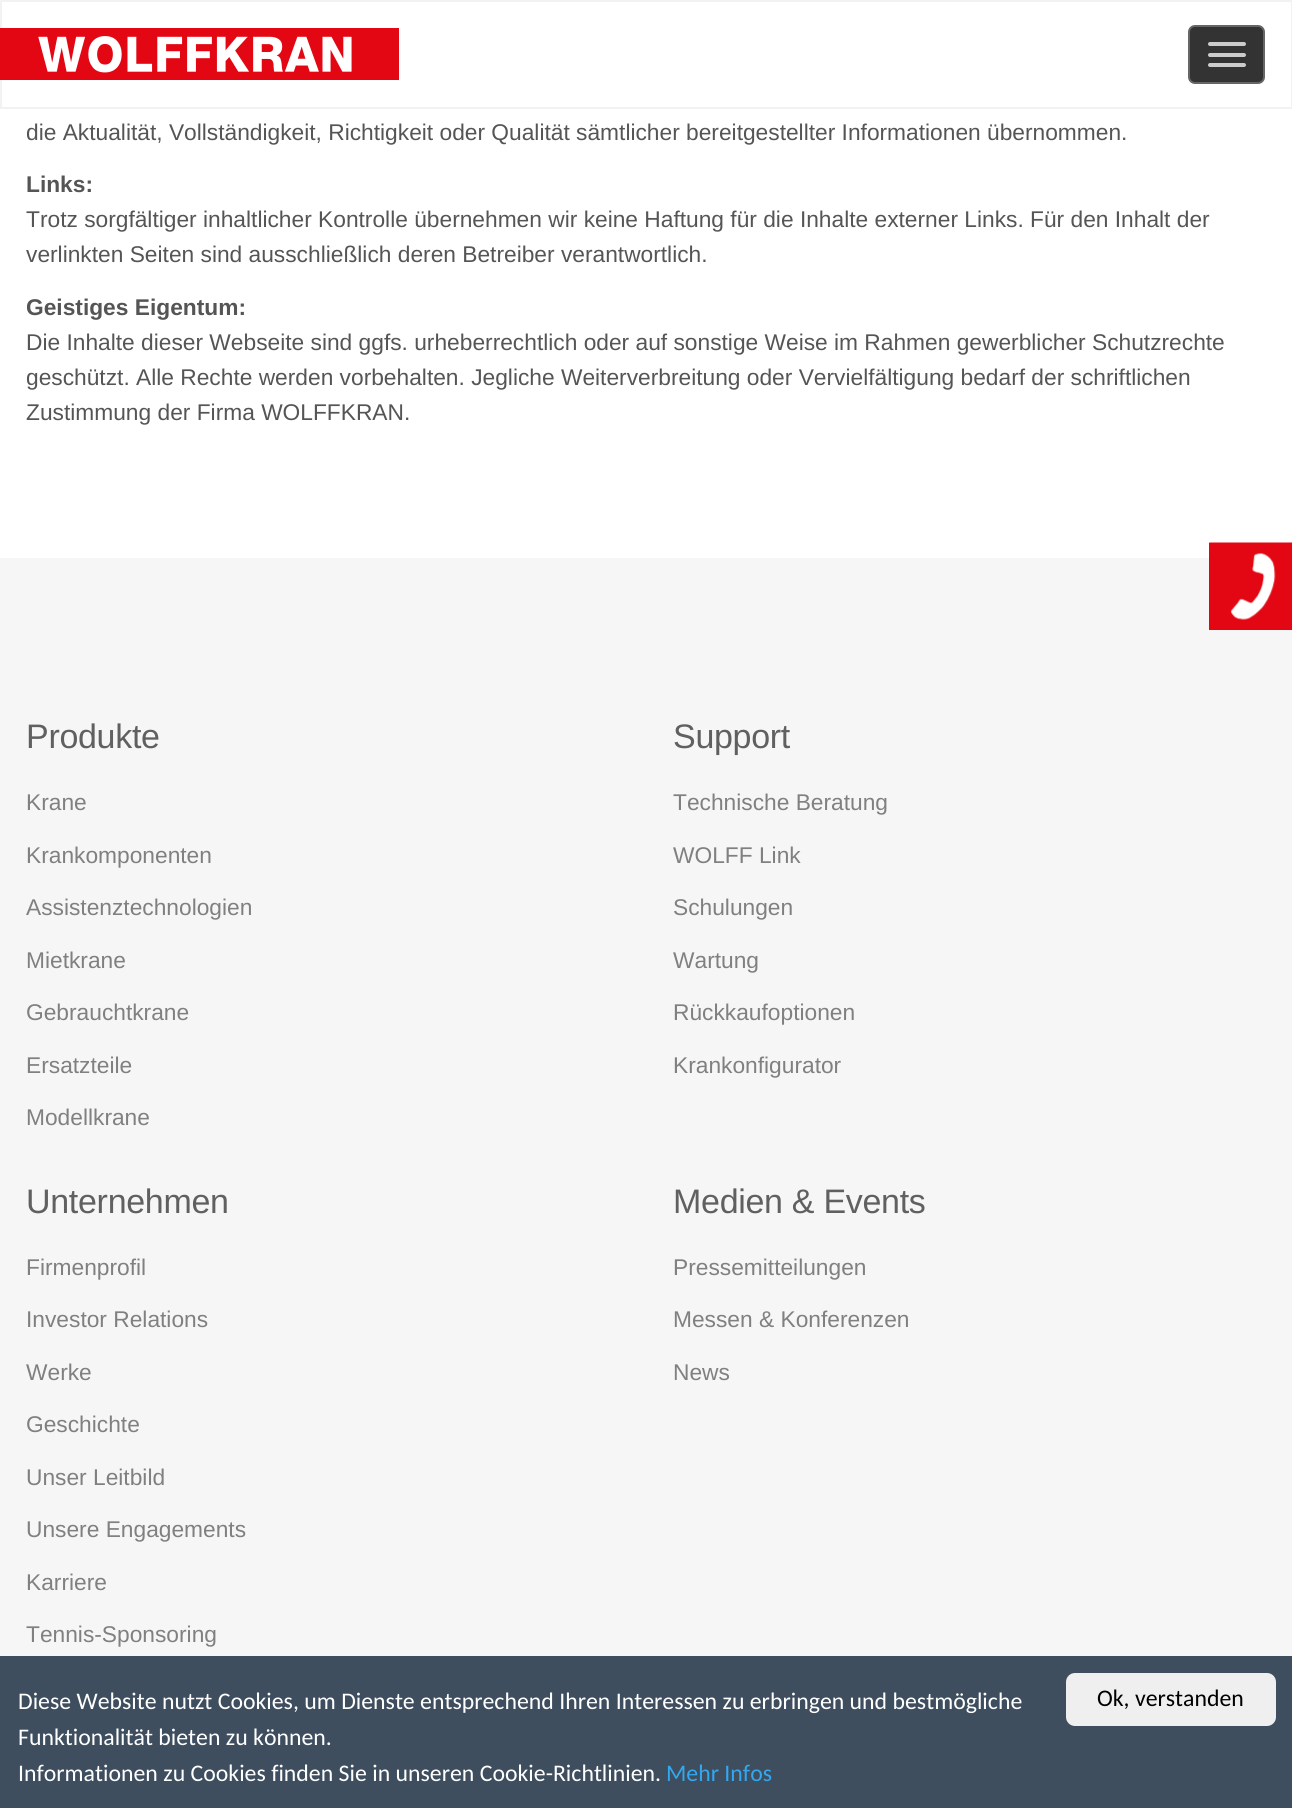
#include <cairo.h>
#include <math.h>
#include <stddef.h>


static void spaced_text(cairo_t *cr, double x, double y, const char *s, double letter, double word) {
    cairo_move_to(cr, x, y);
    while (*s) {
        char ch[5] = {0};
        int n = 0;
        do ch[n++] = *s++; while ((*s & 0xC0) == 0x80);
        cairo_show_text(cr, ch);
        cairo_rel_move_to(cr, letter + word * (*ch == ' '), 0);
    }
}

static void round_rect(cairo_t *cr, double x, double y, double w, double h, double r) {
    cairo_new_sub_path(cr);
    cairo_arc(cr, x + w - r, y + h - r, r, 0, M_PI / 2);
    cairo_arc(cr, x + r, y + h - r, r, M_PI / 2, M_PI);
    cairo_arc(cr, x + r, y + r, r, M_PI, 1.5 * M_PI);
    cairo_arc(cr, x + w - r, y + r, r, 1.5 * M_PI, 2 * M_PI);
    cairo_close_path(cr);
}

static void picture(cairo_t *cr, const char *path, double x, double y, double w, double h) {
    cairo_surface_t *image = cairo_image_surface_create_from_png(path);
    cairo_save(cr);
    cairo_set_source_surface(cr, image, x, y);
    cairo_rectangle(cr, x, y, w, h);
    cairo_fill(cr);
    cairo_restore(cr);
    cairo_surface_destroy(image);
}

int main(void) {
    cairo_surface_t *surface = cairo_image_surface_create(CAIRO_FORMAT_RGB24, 1292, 1808);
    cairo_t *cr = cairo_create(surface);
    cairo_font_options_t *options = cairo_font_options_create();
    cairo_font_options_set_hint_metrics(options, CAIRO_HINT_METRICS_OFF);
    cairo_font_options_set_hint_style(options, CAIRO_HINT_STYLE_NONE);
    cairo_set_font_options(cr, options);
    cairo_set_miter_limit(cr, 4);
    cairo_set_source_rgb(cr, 1, 1, 1);
    cairo_paint(cr);
    cairo_rectangle(cr, 1, 1, 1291, 107);
    cairo_set_source_rgb(cr, 0.949, 0.949, 0.949);
    cairo_stroke(cr);
    picture(cr, "img1.png", 0, 28, 399, 52);
    cairo_set_source_rgb(cr, 0.2, 0.2, 0.2);
    round_rect(cr, 1189, 26, 75, 57, 6);
    cairo_fill_preserve(cr);
    cairo_set_source_rgb(cr, 0.4, 0.4, 0.4);
    cairo_stroke(cr);
    cairo_set_source_rgb(cr, 0.8, 0.8, 0.8);
    round_rect(cr, 1208, 42, 38, 4, 2);
    cairo_fill(cr);
    round_rect(cr, 1208, 53, 38, 4, 2);
    cairo_fill(cr);
    round_rect(cr, 1208, 63, 38, 4, 2);
    cairo_fill(cr);
    cairo_set_source_rgb(cr, 0.961, 0.961, 0.961);
    cairo_rectangle(cr, 0, 558, 1292, 1098);
    cairo_fill(cr);
    cairo_set_source_rgb(cr, 0.89, 0.024, 0.075);
    cairo_rectangle(cr, 1209, 543, 83, 87);
    cairo_fill(cr);
    picture(cr, "img2.png", 1209, 542, 83, 78);
    cairo_select_font_face(cr, "Liberation Sans", CAIRO_FONT_SLANT_NORMAL, CAIRO_FONT_WEIGHT_NORMAL);
    cairo_set_font_size(cr, 22.75);
    cairo_set_source_rgb(cr, 0.333, 0.333, 0.333);
    cairo_move_to(cr, 26, 140);
    cairo_show_text(cr, "die Aktualität, Vollständigkeit, Richtigkeit oder Qualität sämtlicher bereitgestellter Informationen übernommen.");
    cairo_select_font_face(cr, "Liberation Sans", CAIRO_FONT_SLANT_NORMAL, CAIRO_FONT_WEIGHT_BOLD);
    cairo_move_to(cr, 26, 192);
    cairo_show_text(cr, "Links:");
    cairo_select_font_face(cr, "Liberation Sans", CAIRO_FONT_SLANT_NORMAL, CAIRO_FONT_WEIGHT_NORMAL);
    cairo_move_to(cr, 26, 227);
    cairo_show_text(cr, "Trotz sorgfältiger inhaltlicher Kontrolle übernehmen wir keine Haftung für die Inhalte externer Links. Für den Inhalt der");
    cairo_move_to(cr, 26, 262);
    cairo_show_text(cr, "verlinkten Seiten sind ausschließlich deren Betreiber verantwortlich.");
    cairo_select_font_face(cr, "Liberation Sans", CAIRO_FONT_SLANT_NORMAL, CAIRO_FONT_WEIGHT_BOLD);
    cairo_move_to(cr, 26, 315);
    cairo_show_text(cr, "Geistiges Eigentum:");
    cairo_select_font_face(cr, "Liberation Sans", CAIRO_FONT_SLANT_NORMAL, CAIRO_FONT_WEIGHT_NORMAL);
    cairo_move_to(cr, 26, 350);
    cairo_show_text(cr, "Die Inhalte dieser Webseite sind ggfs. urheberrechtlich oder auf sonstige Weise im Rahmen gewerblicher Schutzrechte");
    cairo_move_to(cr, 26, 385);
    cairo_show_text(cr, "geschützt. Alle Rechte werden vorbehalten. Jegliche Weiterverbreitung oder Vervielfältigung bedarf der schriftlichen");
    cairo_move_to(cr, 26, 420);
    cairo_show_text(cr, "Zustimmung der Firma WOLFFKRAN.");
    cairo_set_font_size(cr, 34);
    cairo_set_source_rgb(cr, 0.376, 0.376, 0.376);
    spaced_text(cr, 26, 748, "Produkte", -0.3, 0);
    cairo_set_font_size(cr, 22.75);
    cairo_set_source_rgb(cr, 0.502, 0.502, 0.502);
    cairo_move_to(cr, 26, 810);
    cairo_show_text(cr, "Krane");
    cairo_move_to(cr, 26, 863);
    cairo_show_text(cr, "Krankomponenten");
    cairo_move_to(cr, 26, 915);
    cairo_show_text(cr, "Assistenztechnologien");
    cairo_move_to(cr, 26, 968);
    cairo_show_text(cr, "Mietkrane");
    cairo_move_to(cr, 26, 1020);
    cairo_show_text(cr, "Gebrauchtkrane");
    cairo_move_to(cr, 26, 1073);
    cairo_show_text(cr, "Ersatzteile");
    cairo_move_to(cr, 26, 1125);
    cairo_show_text(cr, "Modellkrane");
    cairo_set_font_size(cr, 34);
    cairo_set_source_rgb(cr, 0.376, 0.376, 0.376);
    spaced_text(cr, 673, 748, "Support", -0.3, 0);
    cairo_set_font_size(cr, 22.75);
    cairo_set_source_rgb(cr, 0.502, 0.502, 0.502);
    cairo_move_to(cr, 673, 810);
    cairo_show_text(cr, "Technische Beratung");
    cairo_move_to(cr, 673, 863);
    cairo_show_text(cr, "WOLFF Link");
    cairo_move_to(cr, 673, 915);
    cairo_show_text(cr, "Schulungen");
    cairo_move_to(cr, 673, 968);
    cairo_show_text(cr, "Wartung");
    cairo_move_to(cr, 673, 1020);
    cairo_show_text(cr, "Rückkaufoptionen");
    cairo_move_to(cr, 673, 1073);
    cairo_show_text(cr, "Krankonfigurator");
    cairo_set_font_size(cr, 34);
    cairo_set_source_rgb(cr, 0.376, 0.376, 0.376);
    spaced_text(cr, 26, 1213, "Unternehmen", -0.3, 0);
    cairo_set_font_size(cr, 22.75);
    cairo_set_source_rgb(cr, 0.502, 0.502, 0.502);
    cairo_move_to(cr, 26, 1275);
    cairo_show_text(cr, "Firmenprofil");
    cairo_move_to(cr, 26, 1327);
    cairo_show_text(cr, "Investor Relations");
    cairo_move_to(cr, 26, 1380);
    cairo_show_text(cr, "Werke");
    cairo_move_to(cr, 26, 1432);
    cairo_show_text(cr, "Geschichte");
    cairo_move_to(cr, 26, 1485);
    cairo_show_text(cr, "Unser Leitbild");
    cairo_move_to(cr, 26, 1537);
    cairo_show_text(cr, "Unsere Engagements");
    cairo_move_to(cr, 26, 1590);
    cairo_show_text(cr, "Karriere");
    cairo_move_to(cr, 26, 1642);
    cairo_show_text(cr, "Tennis-Sponsoring");
    cairo_set_font_size(cr, 34);
    cairo_set_source_rgb(cr, 0.376, 0.376, 0.376);
    spaced_text(cr, 673, 1213, "Medien & Events", -0.3, 0);
    cairo_set_font_size(cr, 22.75);
    cairo_set_source_rgb(cr, 0.502, 0.502, 0.502);
    cairo_move_to(cr, 673, 1275);
    cairo_show_text(cr, "Pressemitteilungen");
    cairo_move_to(cr, 673, 1327);
    cairo_show_text(cr, "Messen & Konferenzen");
    cairo_move_to(cr, 673, 1380);
    cairo_show_text(cr, "News");
    cairo_set_source_rgb(cr, 0.243, 0.306, 0.373);
    cairo_rectangle(cr, 0, 1656, 1292, 152);
    cairo_fill(cr);
    cairo_select_font_face(cr, "Carlito", CAIRO_FONT_SLANT_NORMAL, CAIRO_FONT_WEIGHT_NORMAL);
    cairo_set_font_size(cr, 23.8);
    cairo_set_source_rgb(cr, 1, 1, 1);
    cairo_move_to(cr, 18, 1709);
    cairo_show_text(cr, "Diese Website nutzt Cookies, um Dienste entsprechend Ihren Interessen zu erbringen und bestmögliche");
    cairo_move_to(cr, 18, 1745);
    cairo_show_text(cr, "Funktionalität bieten zu können.");
    cairo_move_to(cr, 18, 1781);
    cairo_show_text(cr, "Informationen zu Cookies finden Sie in unseren Cookie-Richtlinien.");
    cairo_set_source_rgb(cr, 0.192, 0.659, 0.941);
    cairo_move_to(cr, 666, 1781);
    cairo_show_text(cr, "Mehr Infos");
    cairo_set_source_rgb(cr, 0.937, 0.937, 0.937);
    round_rect(cr, 1066, 1673, 210, 53, 9);
    cairo_fill(cr);
    cairo_set_source_rgb(cr, 0, 0, 0);
    cairo_move_to(cr, 1097, 1706);
    cairo_show_text(cr, "Ok, verstanden");
    cairo_surface_write_to_png(surface, "page.png");
    cairo_font_options_destroy(options);
    cairo_destroy(cr);
    cairo_surface_destroy(surface);
    return 0;
}
